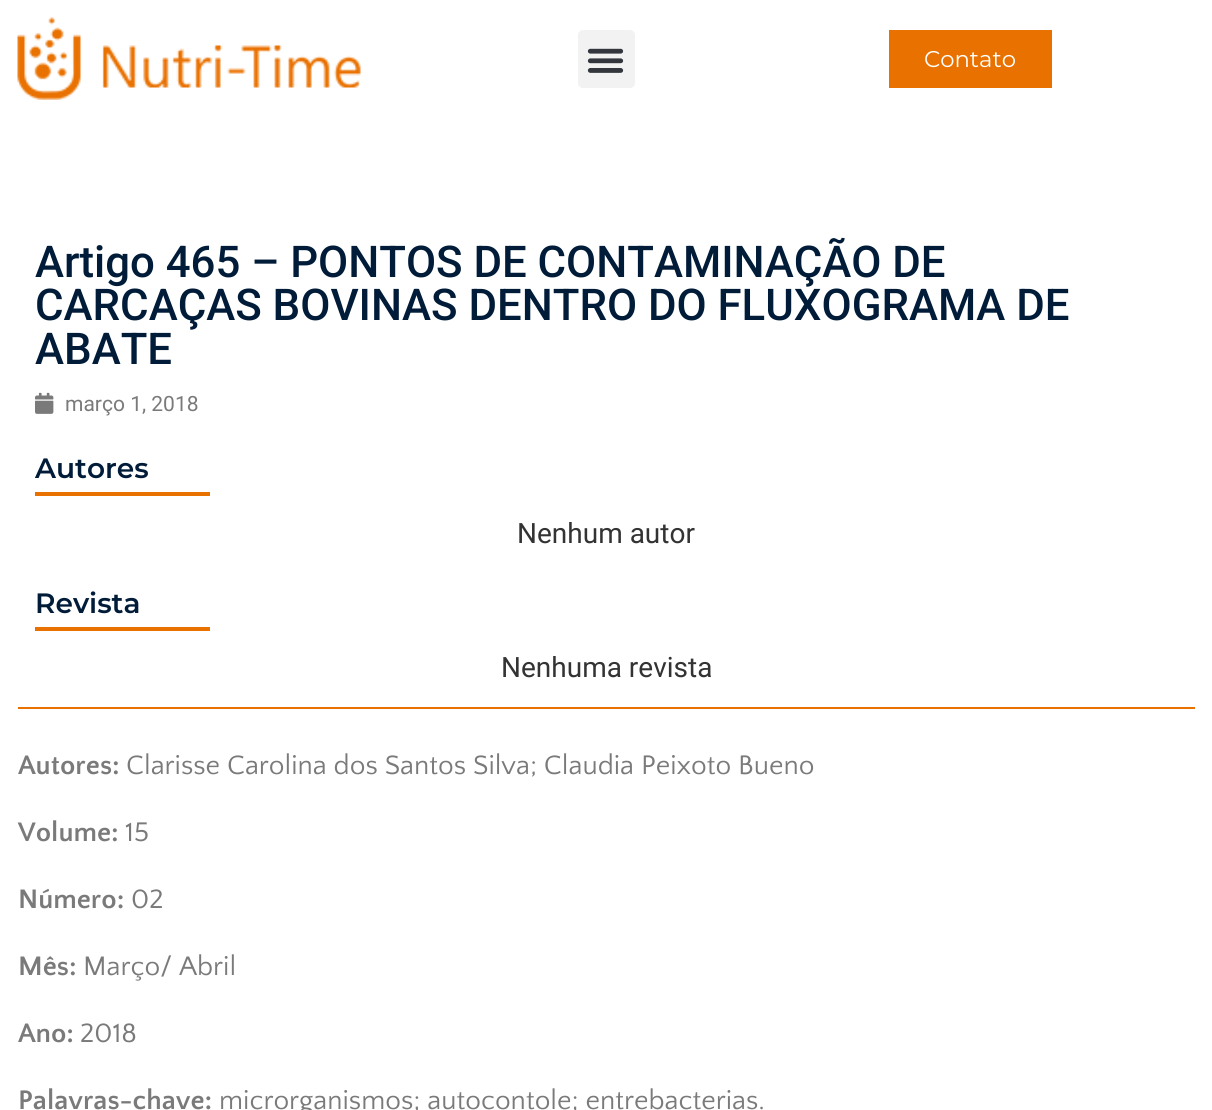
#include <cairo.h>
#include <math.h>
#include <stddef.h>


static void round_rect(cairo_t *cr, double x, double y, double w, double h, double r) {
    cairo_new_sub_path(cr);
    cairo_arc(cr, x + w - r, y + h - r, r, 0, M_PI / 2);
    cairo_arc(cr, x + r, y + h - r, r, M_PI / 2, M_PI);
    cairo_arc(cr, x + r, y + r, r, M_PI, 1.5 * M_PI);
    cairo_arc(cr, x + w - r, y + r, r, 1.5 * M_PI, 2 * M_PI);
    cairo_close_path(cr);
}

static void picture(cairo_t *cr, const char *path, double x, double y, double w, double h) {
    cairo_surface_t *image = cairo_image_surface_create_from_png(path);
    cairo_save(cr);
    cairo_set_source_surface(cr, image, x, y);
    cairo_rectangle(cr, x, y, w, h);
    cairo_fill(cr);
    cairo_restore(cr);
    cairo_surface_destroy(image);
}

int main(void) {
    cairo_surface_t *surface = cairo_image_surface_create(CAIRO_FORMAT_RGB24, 1212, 1110);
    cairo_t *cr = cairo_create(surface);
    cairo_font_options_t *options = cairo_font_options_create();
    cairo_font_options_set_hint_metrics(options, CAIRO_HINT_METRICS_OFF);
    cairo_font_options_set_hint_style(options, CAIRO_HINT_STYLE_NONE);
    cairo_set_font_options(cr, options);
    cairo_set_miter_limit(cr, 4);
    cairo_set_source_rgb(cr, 1, 1, 1);
    cairo_paint(cr);
    picture(cr, "img1.png", 17, 17, 344, 83);
    cairo_set_source_rgb(cr, 0.949, 0.949, 0.949);
    round_rect(cr, 578, 30, 57, 58, 5);
    cairo_fill(cr);
    picture(cr, "img2.png", 587, 48, 37, 25);
    cairo_set_source_rgb(cr, 0.914, 0.443, 0);
    cairo_rectangle(cr, 889, 30, 163, 58);
    cairo_fill(cr);
    cairo_select_font_face(cr, "Montserrat", CAIRO_FONT_SLANT_NORMAL, CAIRO_FONT_WEIGHT_NORMAL);
    cairo_set_font_size(cr, 22.75);
    cairo_set_source_rgb(cr, 1, 1, 1);
    cairo_move_to(cr, 924, 67);
    cairo_show_text(cr, "Contato");
    cairo_select_font_face(cr, "Roboto Medium", CAIRO_FONT_SLANT_NORMAL, CAIRO_FONT_WEIGHT_NORMAL);
    cairo_set_font_size(cr, 43.75);
    cairo_set_source_rgb(cr, 0.004, 0.11, 0.224);
    cairo_move_to(cr, 35, 277);
    cairo_show_text(cr, "Artigo 465 – PONTOS DE CONTAMINAÇÃO DE");
    cairo_move_to(cr, 35, 320);
    cairo_show_text(cr, "CARCAÇAS BOVINAS DENTRO DO FLUXOGRAMA DE");
    cairo_move_to(cr, 35, 364);
    cairo_show_text(cr, "ABATE");
    picture(cr, "img3.png", 35, 392, 19, 22);
    cairo_select_font_face(cr, "Roboto", CAIRO_FONT_SLANT_NORMAL, CAIRO_FONT_WEIGHT_NORMAL);
    cairo_set_font_size(cr, 21);
    cairo_set_source_rgb(cr, 0.478, 0.478, 0.478);
    cairo_move_to(cr, 65, 411);
    cairo_show_text(cr, "março 1, 2018");
    cairo_select_font_face(cr, "Montserrat SemiBold", CAIRO_FONT_SLANT_NORMAL, CAIRO_FONT_WEIGHT_NORMAL);
    cairo_set_font_size(cr, 28);
    cairo_set_source_rgb(cr, 0.004, 0.11, 0.224);
    cairo_move_to(cr, 35, 478);
    cairo_show_text(cr, "Autores");
    cairo_set_source_rgb(cr, 0.914, 0.443, 0);
    cairo_rectangle(cr, 35, 492, 175, 4);
    cairo_fill(cr);
    cairo_select_font_face(cr, "Roboto", CAIRO_FONT_SLANT_NORMAL, CAIRO_FONT_WEIGHT_NORMAL);
    cairo_set_source_rgb(cr, 0.2, 0.2, 0.2);
    cairo_move_to(cr, 517, 543);
    cairo_show_text(cr, "Nenhum autor");
    cairo_select_font_face(cr, "Montserrat SemiBold", CAIRO_FONT_SLANT_NORMAL, CAIRO_FONT_WEIGHT_NORMAL);
    cairo_set_source_rgb(cr, 0.004, 0.11, 0.224);
    cairo_move_to(cr, 35, 613);
    cairo_show_text(cr, "Revista");
    cairo_set_source_rgb(cr, 0.914, 0.443, 0);
    cairo_rectangle(cr, 35, 627, 175, 4);
    cairo_fill(cr);
    cairo_select_font_face(cr, "Roboto", CAIRO_FONT_SLANT_NORMAL, CAIRO_FONT_WEIGHT_NORMAL);
    cairo_set_source_rgb(cr, 0.2, 0.2, 0.2);
    cairo_move_to(cr, 501, 677);
    cairo_show_text(cr, "Nenhuma revista");
    cairo_set_source_rgb(cr, 0.914, 0.443, 0);
    cairo_rectangle(cr, 18, 707, 1177, 2);
    cairo_fill(cr);
    cairo_select_font_face(cr, "Quattrocento Sans", CAIRO_FONT_SLANT_NORMAL, CAIRO_FONT_WEIGHT_BOLD);
    cairo_set_source_rgb(cr, 0.478, 0.478, 0.478);
    cairo_move_to(cr, 18, 774);
    cairo_show_text(cr, "Autores:");
    cairo_select_font_face(cr, "Quattrocento Sans", CAIRO_FONT_SLANT_NORMAL, CAIRO_FONT_WEIGHT_NORMAL);
    cairo_move_to(cr, 126, 774);
    cairo_show_text(cr, "Clarisse Carolina dos Santos Silva; Claudia Peixoto Bueno");
    cairo_select_font_face(cr, "Quattrocento Sans", CAIRO_FONT_SLANT_NORMAL, CAIRO_FONT_WEIGHT_BOLD);
    cairo_move_to(cr, 18, 841);
    cairo_show_text(cr, "Volume:");
    cairo_select_font_face(cr, "Quattrocento Sans", CAIRO_FONT_SLANT_NORMAL, CAIRO_FONT_WEIGHT_NORMAL);
    cairo_move_to(cr, 125, 841);
    cairo_show_text(cr, "15");
    cairo_select_font_face(cr, "Quattrocento Sans", CAIRO_FONT_SLANT_NORMAL, CAIRO_FONT_WEIGHT_BOLD);
    cairo_move_to(cr, 18, 908);
    cairo_show_text(cr, "Número:");
    cairo_select_font_face(cr, "Quattrocento Sans", CAIRO_FONT_SLANT_NORMAL, CAIRO_FONT_WEIGHT_NORMAL);
    cairo_move_to(cr, 131, 908);
    cairo_show_text(cr, "02");
    cairo_select_font_face(cr, "Quattrocento Sans", CAIRO_FONT_SLANT_NORMAL, CAIRO_FONT_WEIGHT_BOLD);
    cairo_move_to(cr, 18, 975);
    cairo_show_text(cr, "Mês:");
    cairo_select_font_face(cr, "Quattrocento Sans", CAIRO_FONT_SLANT_NORMAL, CAIRO_FONT_WEIGHT_NORMAL);
    cairo_move_to(cr, 83, 975);
    cairo_show_text(cr, "Março/ Abril");
    cairo_select_font_face(cr, "Quattrocento Sans", CAIRO_FONT_SLANT_NORMAL, CAIRO_FONT_WEIGHT_BOLD);
    cairo_move_to(cr, 18, 1042);
    cairo_show_text(cr, "Ano:");
    cairo_select_font_face(cr, "Quattrocento Sans", CAIRO_FONT_SLANT_NORMAL, CAIRO_FONT_WEIGHT_NORMAL);
    cairo_move_to(cr, 80, 1042);
    cairo_show_text(cr, "2018");
    cairo_select_font_face(cr, "Quattrocento Sans", CAIRO_FONT_SLANT_NORMAL, CAIRO_FONT_WEIGHT_BOLD);
    cairo_move_to(cr, 18, 1109);
    cairo_show_text(cr, "Palavras-chave:");
    cairo_select_font_face(cr, "Quattrocento Sans", CAIRO_FONT_SLANT_NORMAL, CAIRO_FONT_WEIGHT_NORMAL);
    cairo_move_to(cr, 219, 1109);
    cairo_show_text(cr, "microrganismos; autocontole; entrebacterias.");
    cairo_surface_write_to_png(surface, "page.png");
    cairo_font_options_destroy(options);
    cairo_destroy(cr);
    cairo_surface_destroy(surface);
    return 0;
}
